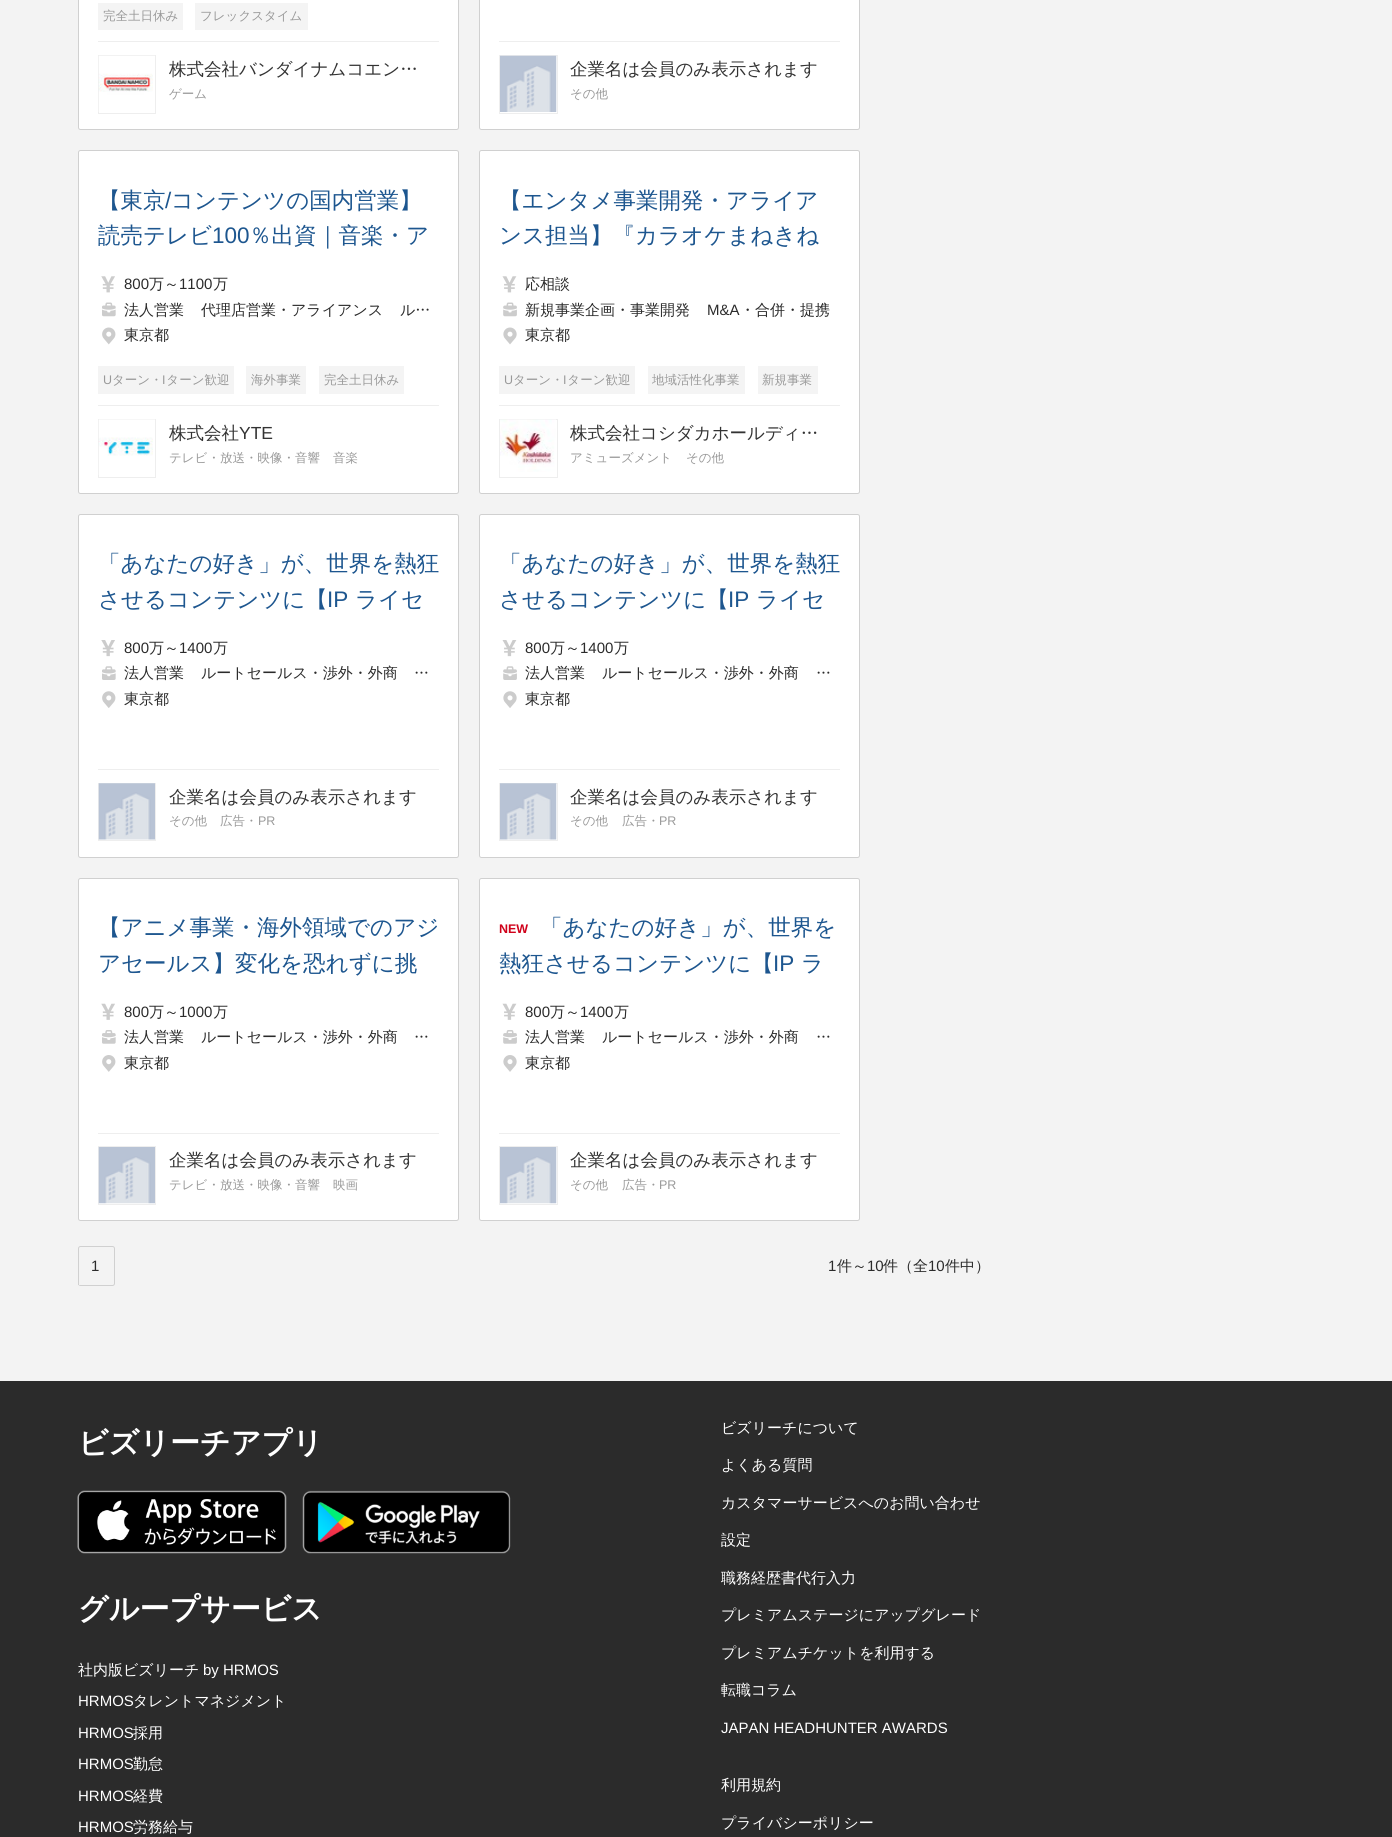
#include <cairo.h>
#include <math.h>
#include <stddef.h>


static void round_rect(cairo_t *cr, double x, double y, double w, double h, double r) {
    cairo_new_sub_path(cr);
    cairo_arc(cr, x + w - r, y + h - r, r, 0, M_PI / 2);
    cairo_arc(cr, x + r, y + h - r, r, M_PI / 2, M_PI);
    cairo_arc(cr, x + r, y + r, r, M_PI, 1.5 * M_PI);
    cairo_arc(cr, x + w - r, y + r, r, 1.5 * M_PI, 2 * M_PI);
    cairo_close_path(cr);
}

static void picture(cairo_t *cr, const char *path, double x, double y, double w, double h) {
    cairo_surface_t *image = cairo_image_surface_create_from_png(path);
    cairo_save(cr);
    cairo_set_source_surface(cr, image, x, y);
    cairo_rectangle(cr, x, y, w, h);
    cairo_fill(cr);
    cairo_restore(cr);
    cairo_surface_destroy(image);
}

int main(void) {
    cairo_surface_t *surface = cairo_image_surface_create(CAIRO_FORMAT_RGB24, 1392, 1837);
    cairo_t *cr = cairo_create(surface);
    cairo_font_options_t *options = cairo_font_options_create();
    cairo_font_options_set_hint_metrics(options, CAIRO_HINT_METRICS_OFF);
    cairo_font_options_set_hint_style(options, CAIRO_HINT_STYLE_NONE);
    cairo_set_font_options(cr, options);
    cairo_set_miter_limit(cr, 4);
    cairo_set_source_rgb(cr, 0.169, 0.169, 0.169);
    cairo_paint(cr);
    cairo_set_source_rgb(cr, 0.953, 0.953, 0.953);
    cairo_rectangle(cr, 0, 0, 1392, 1381);
    cairo_fill(cr);
    cairo_set_source_rgb(cr, 1, 1, 1);
    round_rect(cr, 78.5, -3.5, 380, 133, 2);
    cairo_fill_preserve(cr);
    cairo_set_source_rgb(cr, 0.816, 0.816, 0.816);
    cairo_set_line_width(cr, 1);
    cairo_stroke(cr);
    cairo_set_source_rgb(cr, 0.957, 0.957, 0.957);
    cairo_rectangle(cr, 98, 3, 85, 27);
    cairo_fill(cr);
    cairo_select_font_face(cr, "WenQuanYi Zen Hei Medium", CAIRO_FONT_SLANT_NORMAL, CAIRO_FONT_WEIGHT_NORMAL);
    cairo_set_font_size(cr, 12.5);
    cairo_set_source_rgb(cr, 0.6, 0.6, 0.6);
    cairo_move_to(cr, 103, 20);
    cairo_show_text(cr, "完全土日休み");
    cairo_set_source_rgb(cr, 0.957, 0.957, 0.957);
    cairo_rectangle(cr, 195, 3, 113, 27);
    cairo_fill(cr);
    cairo_set_source_rgb(cr, 0.6, 0.6, 0.6);
    cairo_move_to(cr, 200, 20);
    cairo_show_text(cr, "フレックスタイム");
    cairo_set_source_rgb(cr, 0.933, 0.933, 0.933);
    cairo_rectangle(cr, 98, 41, 341, 1);
    cairo_fill(cr);
    cairo_rectangle(cr, 98.5, 55.5, 57, 58);
    cairo_stroke(cr);
    picture(cr, "img1.png", 98, 55, 57, 57);
    cairo_set_font_size(cr, 17.5);
    cairo_set_source_rgb(cr, 0.2, 0.2, 0.2);
    cairo_move_to(cr, 169, 75);
    cairo_show_text(cr, "株式会社バンダイナムコエン…");
    cairo_set_font_size(cr, 12.5);
    cairo_set_source_rgb(cr, 0.6, 0.6, 0.6);
    cairo_move_to(cr, 169, 98);
    cairo_show_text(cr, "ゲーム");
    cairo_set_source_rgb(cr, 1, 1, 1);
    round_rect(cr, 479.5, -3.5, 380, 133, 2);
    cairo_fill_preserve(cr);
    cairo_set_source_rgb(cr, 0.816, 0.816, 0.816);
    cairo_stroke(cr);
    cairo_set_source_rgb(cr, 0.933, 0.933, 0.933);
    cairo_rectangle(cr, 499, 41, 341, 1);
    cairo_fill(cr);
    cairo_rectangle(cr, 499.5, 55.5, 58, 58);
    cairo_stroke(cr);
    picture(cr, "img2.png", 500, 55, 57, 57);
    cairo_set_font_size(cr, 17.5);
    cairo_set_source_rgb(cr, 0.2, 0.2, 0.2);
    cairo_move_to(cr, 570, 75);
    cairo_show_text(cr, "企業名は会員のみ表示されます");
    cairo_set_font_size(cr, 12.5);
    cairo_set_source_rgb(cr, 0.6, 0.6, 0.6);
    cairo_move_to(cr, 570, 98);
    cairo_show_text(cr, "その他");
    cairo_set_source_rgb(cr, 1, 1, 1);
    round_rect(cr, 78.5, 150.5, 380, 343, 2);
    cairo_fill_preserve(cr);
    cairo_set_source_rgb(cr, 0.816, 0.816, 0.816);
    cairo_stroke(cr);
    cairo_set_font_size(cr, 22.5);
    cairo_set_source_rgb(cr, 0.114, 0.337, 0.561);
    cairo_move_to(cr, 98, 208);
    cairo_show_text(cr, "【東京");
    cairo_select_font_face(cr, "Liberation Sans", CAIRO_FONT_SLANT_NORMAL, CAIRO_FONT_WEIGHT_NORMAL);
    cairo_move_to(cr, 165, 208);
    cairo_show_text(cr, "/");
    cairo_select_font_face(cr, "WenQuanYi Zen Hei Medium", CAIRO_FONT_SLANT_NORMAL, CAIRO_FONT_WEIGHT_NORMAL);
    cairo_move_to(cr, 171, 208);
    cairo_show_text(cr, "コンテンツの国内営業】");
    cairo_move_to(cr, 98, 243);
    cairo_show_text(cr, "読売テレビ");
    cairo_select_font_face(cr, "Liberation Sans", CAIRO_FONT_SLANT_NORMAL, CAIRO_FONT_WEIGHT_NORMAL);
    cairo_move_to(cr, 212, 243);
    cairo_show_text(cr, "100");
    cairo_select_font_face(cr, "WenQuanYi Zen Hei Medium", CAIRO_FONT_SLANT_NORMAL, CAIRO_FONT_WEIGHT_NORMAL);
    cairo_move_to(cr, 249, 243);
    cairo_show_text(cr, "％出資｜音楽・ア");
    picture(cr, "img3.png", 101, 276, 14, 17);
    cairo_select_font_face(cr, "Liberation Sans", CAIRO_FONT_SLANT_NORMAL, CAIRO_FONT_WEIGHT_NORMAL);
    cairo_set_font_size(cr, 15);
    cairo_set_source_rgb(cr, 0.169, 0.169, 0.169);
    cairo_move_to(cr, 124, 289);
    cairo_show_text(cr, "800");
    cairo_select_font_face(cr, "WenQuanYi Zen Hei Medium", CAIRO_FONT_SLANT_NORMAL, CAIRO_FONT_WEIGHT_NORMAL);
    cairo_move_to(cr, 149, 289);
    cairo_show_text(cr, "万～");
    cairo_select_font_face(cr, "Liberation Sans", CAIRO_FONT_SLANT_NORMAL, CAIRO_FONT_WEIGHT_NORMAL);
    cairo_move_to(cr, 179, 289);
    cairo_show_text(cr, "1100");
    cairo_select_font_face(cr, "WenQuanYi Zen Hei Medium", CAIRO_FONT_SLANT_NORMAL, CAIRO_FONT_WEIGHT_NORMAL);
    cairo_move_to(cr, 213, 289);
    cairo_show_text(cr, "万");
    picture(cr, "img4.png", 102, 302, 14, 15);
    cairo_move_to(cr, 124, 315);
    cairo_show_text(cr, "法人営業");
    cairo_move_to(cr, 201, 315);
    cairo_show_text(cr, "代理店営業・アライアンス");
    cairo_move_to(cr, 400, 315);
    cairo_show_text(cr, "ル…");
    picture(cr, "img5.png", 102, 327, 14, 18);
    cairo_move_to(cr, 124, 340);
    cairo_show_text(cr, "東京都");
    cairo_set_source_rgb(cr, 0.957, 0.957, 0.957);
    cairo_rectangle(cr, 98, 366, 136, 28);
    cairo_fill(cr);
    cairo_select_font_face(cr, "Liberation Sans", CAIRO_FONT_SLANT_NORMAL, CAIRO_FONT_WEIGHT_NORMAL);
    cairo_set_font_size(cr, 12.5);
    cairo_set_source_rgb(cr, 0.6, 0.6, 0.6);
    cairo_move_to(cr, 103, 384);
    cairo_show_text(cr, "U");
    cairo_select_font_face(cr, "WenQuanYi Zen Hei Medium", CAIRO_FONT_SLANT_NORMAL, CAIRO_FONT_WEIGHT_NORMAL);
    cairo_move_to(cr, 112, 384);
    cairo_show_text(cr, "ターン・ ターン歓迎");
    cairo_select_font_face(cr, "Liberation Sans", CAIRO_FONT_SLANT_NORMAL, CAIRO_FONT_WEIGHT_NORMAL);
    cairo_move_to(cr, 162, 384);
    cairo_show_text(cr, "I");
    cairo_set_source_rgb(cr, 0.957, 0.957, 0.957);
    cairo_rectangle(cr, 246, 366, 60, 28);
    cairo_fill(cr);
    cairo_select_font_face(cr, "WenQuanYi Zen Hei Medium", CAIRO_FONT_SLANT_NORMAL, CAIRO_FONT_WEIGHT_NORMAL);
    cairo_set_source_rgb(cr, 0.6, 0.6, 0.6);
    cairo_move_to(cr, 251, 384);
    cairo_show_text(cr, "海外事業");
    cairo_set_source_rgb(cr, 0.957, 0.957, 0.957);
    cairo_rectangle(cr, 319, 366, 85, 28);
    cairo_fill(cr);
    cairo_set_source_rgb(cr, 0.6, 0.6, 0.6);
    cairo_move_to(cr, 324, 384);
    cairo_show_text(cr, "完全土日休み");
    cairo_set_source_rgb(cr, 0.933, 0.933, 0.933);
    cairo_rectangle(cr, 98, 405, 341, 1);
    cairo_fill(cr);
    cairo_rectangle(cr, 98.5, 419.5, 57, 58);
    cairo_stroke(cr);
    picture(cr, "img6.png", 98, 419, 57, 56);
    cairo_set_font_size(cr, 17.5);
    cairo_set_source_rgb(cr, 0.2, 0.2, 0.2);
    cairo_move_to(cr, 169, 439);
    cairo_show_text(cr, "株式会社");
    cairo_select_font_face(cr, "Liberation Sans", CAIRO_FONT_SLANT_NORMAL, CAIRO_FONT_WEIGHT_NORMAL);
    cairo_move_to(cr, 239, 439);
    cairo_show_text(cr, "YTE");
    cairo_select_font_face(cr, "WenQuanYi Zen Hei Medium", CAIRO_FONT_SLANT_NORMAL, CAIRO_FONT_WEIGHT_NORMAL);
    cairo_set_font_size(cr, 12.5);
    cairo_set_source_rgb(cr, 0.6, 0.6, 0.6);
    cairo_move_to(cr, 169, 462);
    cairo_show_text(cr, "テレビ・放送・映像・音響");
    cairo_move_to(cr, 333, 462);
    cairo_show_text(cr, "音楽");
    cairo_set_source_rgb(cr, 1, 1, 1);
    round_rect(cr, 479.5, 150.5, 380, 343, 2);
    cairo_fill_preserve(cr);
    cairo_set_source_rgb(cr, 0.816, 0.816, 0.816);
    cairo_stroke(cr);
    cairo_set_font_size(cr, 22.5);
    cairo_set_source_rgb(cr, 0.114, 0.337, 0.561);
    cairo_move_to(cr, 499, 208);
    cairo_show_text(cr, "【エンタメ事業開発・アライア");
    cairo_move_to(cr, 499, 243);
    cairo_show_text(cr, "ンス担当】『カラオケまねきね");
    picture(cr, "img7.png", 502, 276, 15, 17);
    cairo_set_font_size(cr, 15);
    cairo_set_source_rgb(cr, 0.169, 0.169, 0.169);
    cairo_move_to(cr, 525, 289);
    cairo_show_text(cr, "応相談");
    picture(cr, "img8.png", 503, 302, 14, 15);
    cairo_move_to(cr, 525, 315);
    cairo_show_text(cr, "新規事業企画・事業開発");
    cairo_select_font_face(cr, "Liberation Sans", CAIRO_FONT_SLANT_NORMAL, CAIRO_FONT_WEIGHT_NORMAL);
    cairo_move_to(cr, 707, 315);
    cairo_show_text(cr, "M&A");
    cairo_select_font_face(cr, "WenQuanYi Zen Hei Medium", CAIRO_FONT_SLANT_NORMAL, CAIRO_FONT_WEIGHT_NORMAL);
    cairo_move_to(cr, 740, 315);
    cairo_show_text(cr, "・合併・提携");
    picture(cr, "img9.png", 503, 327, 14, 18);
    cairo_move_to(cr, 525, 340);
    cairo_show_text(cr, "東京都");
    cairo_set_source_rgb(cr, 0.957, 0.957, 0.957);
    cairo_rectangle(cr, 499, 366, 136, 28);
    cairo_fill(cr);
    cairo_select_font_face(cr, "Liberation Sans", CAIRO_FONT_SLANT_NORMAL, CAIRO_FONT_WEIGHT_NORMAL);
    cairo_set_font_size(cr, 12.5);
    cairo_set_source_rgb(cr, 0.6, 0.6, 0.6);
    cairo_move_to(cr, 504, 384);
    cairo_show_text(cr, "U");
    cairo_select_font_face(cr, "WenQuanYi Zen Hei Medium", CAIRO_FONT_SLANT_NORMAL, CAIRO_FONT_WEIGHT_NORMAL);
    cairo_move_to(cr, 513, 384);
    cairo_show_text(cr, "ターン・ ターン歓迎");
    cairo_select_font_face(cr, "Liberation Sans", CAIRO_FONT_SLANT_NORMAL, CAIRO_FONT_WEIGHT_NORMAL);
    cairo_move_to(cr, 563, 384);
    cairo_show_text(cr, "I");
    cairo_set_source_rgb(cr, 0.957, 0.957, 0.957);
    cairo_rectangle(cr, 648, 366, 97, 28);
    cairo_fill(cr);
    cairo_select_font_face(cr, "WenQuanYi Zen Hei Medium", CAIRO_FONT_SLANT_NORMAL, CAIRO_FONT_WEIGHT_NORMAL);
    cairo_set_source_rgb(cr, 0.6, 0.6, 0.6);
    cairo_move_to(cr, 652, 384);
    cairo_show_text(cr, "地域活性化事業");
    cairo_set_source_rgb(cr, 0.957, 0.957, 0.957);
    cairo_rectangle(cr, 758, 366, 60, 28);
    cairo_fill(cr);
    cairo_set_source_rgb(cr, 0.6, 0.6, 0.6);
    cairo_move_to(cr, 762, 384);
    cairo_show_text(cr, "新規事業");
    cairo_set_source_rgb(cr, 0.933, 0.933, 0.933);
    cairo_rectangle(cr, 499, 405, 341, 1);
    cairo_fill(cr);
    cairo_rectangle(cr, 499.5, 419.5, 58, 58);
    cairo_stroke(cr);
    picture(cr, "img10.png", 500, 419, 56, 53);
    cairo_set_font_size(cr, 17.5);
    cairo_set_source_rgb(cr, 0.2, 0.2, 0.2);
    cairo_move_to(cr, 570, 439);
    cairo_show_text(cr, "株式会社コシダカホールディ…");
    cairo_set_font_size(cr, 12.5);
    cairo_set_source_rgb(cr, 0.6, 0.6, 0.6);
    cairo_move_to(cr, 570, 462);
    cairo_show_text(cr, "アミューズメント");
    cairo_move_to(cr, 686, 462);
    cairo_show_text(cr, "その他");
    cairo_set_source_rgb(cr, 1, 1, 1);
    round_rect(cr, 78.5, 514.5, 380, 343, 2);
    cairo_fill_preserve(cr);
    cairo_set_source_rgb(cr, 0.816, 0.816, 0.816);
    cairo_stroke(cr);
    cairo_set_font_size(cr, 22.5);
    cairo_set_source_rgb(cr, 0.114, 0.337, 0.561);
    cairo_move_to(cr, 98, 571);
    cairo_show_text(cr, "「あなたの好き」が、世界を熱狂");
    cairo_move_to(cr, 98, 607);
    cairo_show_text(cr, "させるコンテンツに【");
    cairo_select_font_face(cr, "Liberation Sans", CAIRO_FONT_SLANT_NORMAL, CAIRO_FONT_WEIGHT_NORMAL);
    cairo_move_to(cr, 327, 607);
    cairo_show_text(cr, "IP");
    cairo_select_font_face(cr, "WenQuanYi Zen Hei Medium", CAIRO_FONT_SLANT_NORMAL, CAIRO_FONT_WEIGHT_NORMAL);
    cairo_move_to(cr, 355, 607);
    cairo_show_text(cr, "ライセ");
    picture(cr, "img11.png", 101, 640, 14, 17);
    cairo_select_font_face(cr, "Liberation Sans", CAIRO_FONT_SLANT_NORMAL, CAIRO_FONT_WEIGHT_NORMAL);
    cairo_set_font_size(cr, 15);
    cairo_set_source_rgb(cr, 0.169, 0.169, 0.169);
    cairo_move_to(cr, 124, 653);
    cairo_show_text(cr, "800");
    cairo_select_font_face(cr, "WenQuanYi Zen Hei Medium", CAIRO_FONT_SLANT_NORMAL, CAIRO_FONT_WEIGHT_NORMAL);
    cairo_move_to(cr, 149, 653);
    cairo_show_text(cr, "万～");
    cairo_select_font_face(cr, "Liberation Sans", CAIRO_FONT_SLANT_NORMAL, CAIRO_FONT_WEIGHT_NORMAL);
    cairo_move_to(cr, 179, 653);
    cairo_show_text(cr, "1400");
    cairo_select_font_face(cr, "WenQuanYi Zen Hei Medium", CAIRO_FONT_SLANT_NORMAL, CAIRO_FONT_WEIGHT_NORMAL);
    cairo_move_to(cr, 213, 653);
    cairo_show_text(cr, "万");
    picture(cr, "img12.png", 102, 666, 14, 14);
    cairo_move_to(cr, 124, 678);
    cairo_show_text(cr, "法人営業");
    cairo_move_to(cr, 201, 678);
    cairo_show_text(cr, "ルートセールス・渉外・外商");
    cairo_move_to(cr, 414, 678);
    cairo_show_text(cr, "…");
    picture(cr, "img13.png", 102, 691, 14, 17);
    cairo_move_to(cr, 124, 704);
    cairo_show_text(cr, "東京都");
    cairo_set_source_rgb(cr, 0.933, 0.933, 0.933);
    cairo_rectangle(cr, 98, 769, 341, 1);
    cairo_fill(cr);
    cairo_rectangle(cr, 98.5, 783.5, 57, 57);
    cairo_stroke(cr);
    picture(cr, "img14.png", 98, 783, 57, 57);
    cairo_set_font_size(cr, 17.5);
    cairo_set_source_rgb(cr, 0.2, 0.2, 0.2);
    cairo_move_to(cr, 169, 803);
    cairo_show_text(cr, "企業名は会員のみ表示されます");
    cairo_set_font_size(cr, 12.5);
    cairo_set_source_rgb(cr, 0.6, 0.6, 0.6);
    cairo_move_to(cr, 169, 825);
    cairo_show_text(cr, "その他");
    cairo_move_to(cr, 220, 825);
    cairo_show_text(cr, "広告・");
    cairo_select_font_face(cr, "Liberation Sans", CAIRO_FONT_SLANT_NORMAL, CAIRO_FONT_WEIGHT_NORMAL);
    cairo_move_to(cr, 258, 825);
    cairo_show_text(cr, "PR");
    cairo_set_source_rgb(cr, 1, 1, 1);
    round_rect(cr, 479.5, 514.5, 380, 343, 2);
    cairo_fill_preserve(cr);
    cairo_set_source_rgb(cr, 0.816, 0.816, 0.816);
    cairo_stroke(cr);
    cairo_select_font_face(cr, "WenQuanYi Zen Hei Medium", CAIRO_FONT_SLANT_NORMAL, CAIRO_FONT_WEIGHT_NORMAL);
    cairo_set_font_size(cr, 22.5);
    cairo_set_source_rgb(cr, 0.114, 0.337, 0.561);
    cairo_move_to(cr, 499, 571);
    cairo_show_text(cr, "「あなたの好き」が、世界を熱狂");
    cairo_move_to(cr, 499, 607);
    cairo_show_text(cr, "させるコンテンツに【");
    cairo_select_font_face(cr, "Liberation Sans", CAIRO_FONT_SLANT_NORMAL, CAIRO_FONT_WEIGHT_NORMAL);
    cairo_move_to(cr, 728, 607);
    cairo_show_text(cr, "IP");
    cairo_select_font_face(cr, "WenQuanYi Zen Hei Medium", CAIRO_FONT_SLANT_NORMAL, CAIRO_FONT_WEIGHT_NORMAL);
    cairo_move_to(cr, 756, 607);
    cairo_show_text(cr, "ライセ");
    picture(cr, "img15.png", 502, 640, 15, 17);
    cairo_select_font_face(cr, "Liberation Sans", CAIRO_FONT_SLANT_NORMAL, CAIRO_FONT_WEIGHT_NORMAL);
    cairo_set_font_size(cr, 15);
    cairo_set_source_rgb(cr, 0.169, 0.169, 0.169);
    cairo_move_to(cr, 525, 653);
    cairo_show_text(cr, "800");
    cairo_select_font_face(cr, "WenQuanYi Zen Hei Medium", CAIRO_FONT_SLANT_NORMAL, CAIRO_FONT_WEIGHT_NORMAL);
    cairo_move_to(cr, 550, 653);
    cairo_show_text(cr, "万～");
    cairo_select_font_face(cr, "Liberation Sans", CAIRO_FONT_SLANT_NORMAL, CAIRO_FONT_WEIGHT_NORMAL);
    cairo_move_to(cr, 580, 653);
    cairo_show_text(cr, "1400");
    cairo_select_font_face(cr, "WenQuanYi Zen Hei Medium", CAIRO_FONT_SLANT_NORMAL, CAIRO_FONT_WEIGHT_NORMAL);
    cairo_move_to(cr, 614, 653);
    cairo_show_text(cr, "万");
    picture(cr, "img16.png", 503, 666, 14, 14);
    cairo_move_to(cr, 525, 678);
    cairo_show_text(cr, "法人営業");
    cairo_move_to(cr, 602, 678);
    cairo_show_text(cr, "ルートセールス・渉外・外商");
    cairo_move_to(cr, 816, 678);
    cairo_show_text(cr, "…");
    picture(cr, "img17.png", 503, 691, 14, 17);
    cairo_move_to(cr, 525, 704);
    cairo_show_text(cr, "東京都");
    cairo_set_source_rgb(cr, 0.933, 0.933, 0.933);
    cairo_rectangle(cr, 499, 769, 341, 1);
    cairo_fill(cr);
    cairo_rectangle(cr, 499.5, 783.5, 58, 57);
    cairo_stroke(cr);
    picture(cr, "img18.png", 500, 783, 57, 57);
    cairo_set_font_size(cr, 17.5);
    cairo_set_source_rgb(cr, 0.2, 0.2, 0.2);
    cairo_move_to(cr, 570, 803);
    cairo_show_text(cr, "企業名は会員のみ表示されます");
    cairo_set_font_size(cr, 12.5);
    cairo_set_source_rgb(cr, 0.6, 0.6, 0.6);
    cairo_move_to(cr, 570, 825);
    cairo_show_text(cr, "その他");
    cairo_move_to(cr, 622, 825);
    cairo_show_text(cr, "広告・");
    cairo_select_font_face(cr, "Liberation Sans", CAIRO_FONT_SLANT_NORMAL, CAIRO_FONT_WEIGHT_NORMAL);
    cairo_move_to(cr, 659, 825);
    cairo_show_text(cr, "PR");
    cairo_set_source_rgb(cr, 1, 1, 1);
    round_rect(cr, 78.5, 878.5, 380, 342, 2);
    cairo_fill_preserve(cr);
    cairo_set_source_rgb(cr, 0.816, 0.816, 0.816);
    cairo_stroke(cr);
    cairo_select_font_face(cr, "WenQuanYi Zen Hei Medium", CAIRO_FONT_SLANT_NORMAL, CAIRO_FONT_WEIGHT_NORMAL);
    cairo_set_font_size(cr, 22.5);
    cairo_set_source_rgb(cr, 0.114, 0.337, 0.561);
    cairo_move_to(cr, 98, 935);
    cairo_show_text(cr, "【アニメ事業・海外領域でのアジ");
    cairo_move_to(cr, 98, 971);
    cairo_show_text(cr, "アセールス】変化を恐れずに挑");
    picture(cr, "img19.png", 101, 1003, 14, 17);
    cairo_select_font_face(cr, "Liberation Sans", CAIRO_FONT_SLANT_NORMAL, CAIRO_FONT_WEIGHT_NORMAL);
    cairo_set_font_size(cr, 15);
    cairo_set_source_rgb(cr, 0.169, 0.169, 0.169);
    cairo_move_to(cr, 124, 1017);
    cairo_show_text(cr, "800");
    cairo_select_font_face(cr, "WenQuanYi Zen Hei Medium", CAIRO_FONT_SLANT_NORMAL, CAIRO_FONT_WEIGHT_NORMAL);
    cairo_move_to(cr, 149, 1017);
    cairo_show_text(cr, "万～");
    cairo_select_font_face(cr, "Liberation Sans", CAIRO_FONT_SLANT_NORMAL, CAIRO_FONT_WEIGHT_NORMAL);
    cairo_move_to(cr, 179, 1017);
    cairo_show_text(cr, "1000");
    cairo_select_font_face(cr, "WenQuanYi Zen Hei Medium", CAIRO_FONT_SLANT_NORMAL, CAIRO_FONT_WEIGHT_NORMAL);
    cairo_move_to(cr, 213, 1017);
    cairo_show_text(cr, "万");
    picture(cr, "img20.png", 102, 1030, 14, 14);
    cairo_move_to(cr, 124, 1042);
    cairo_show_text(cr, "法人営業");
    cairo_move_to(cr, 201, 1042);
    cairo_show_text(cr, "ルートセールス・渉外・外商");
    cairo_move_to(cr, 414, 1042);
    cairo_show_text(cr, "…");
    picture(cr, "img21.png", 102, 1055, 14, 17);
    cairo_move_to(cr, 124, 1068);
    cairo_show_text(cr, "東京都");
    cairo_set_source_rgb(cr, 0.933, 0.933, 0.933);
    cairo_rectangle(cr, 98, 1133, 341, 1);
    cairo_fill(cr);
    cairo_rectangle(cr, 98.5, 1146.5, 57, 58);
    cairo_stroke(cr);
    picture(cr, "img22.png", 98, 1147, 57, 57);
    cairo_set_font_size(cr, 17.5);
    cairo_set_source_rgb(cr, 0.2, 0.2, 0.2);
    cairo_move_to(cr, 169, 1166);
    cairo_show_text(cr, "企業名は会員のみ表示されます");
    cairo_set_font_size(cr, 12.5);
    cairo_set_source_rgb(cr, 0.6, 0.6, 0.6);
    cairo_move_to(cr, 169, 1189);
    cairo_show_text(cr, "テレビ・放送・映像・音響");
    cairo_move_to(cr, 333, 1189);
    cairo_show_text(cr, "映画");
    cairo_set_source_rgb(cr, 1, 1, 1);
    round_rect(cr, 479.5, 878.5, 380, 342, 2);
    cairo_fill_preserve(cr);
    cairo_set_source_rgb(cr, 0.816, 0.816, 0.816);
    cairo_stroke(cr);
    cairo_select_font_face(cr, "Liberation Sans", CAIRO_FONT_SLANT_NORMAL, CAIRO_FONT_WEIGHT_BOLD);
    cairo_set_source_rgb(cr, 0.816, 0.008, 0.106);
    cairo_move_to(cr, 499, 933);
    cairo_show_text(cr, "NEW");
    cairo_select_font_face(cr, "WenQuanYi Zen Hei Medium", CAIRO_FONT_SLANT_NORMAL, CAIRO_FONT_WEIGHT_NORMAL);
    cairo_set_font_size(cr, 22.5);
    cairo_set_source_rgb(cr, 0.114, 0.337, 0.561);
    cairo_move_to(cr, 540, 935);
    cairo_show_text(cr, "「あなたの好き」が、世界を");
    cairo_move_to(cr, 499, 971);
    cairo_show_text(cr, "熱狂させるコンテンツに【");
    cairo_select_font_face(cr, "Liberation Sans", CAIRO_FONT_SLANT_NORMAL, CAIRO_FONT_WEIGHT_NORMAL);
    cairo_move_to(cr, 773, 971);
    cairo_show_text(cr, "IP");
    cairo_select_font_face(cr, "WenQuanYi Zen Hei Medium", CAIRO_FONT_SLANT_NORMAL, CAIRO_FONT_WEIGHT_NORMAL);
    cairo_move_to(cr, 801, 971);
    cairo_show_text(cr, "ラ");
    picture(cr, "img23.png", 502, 1003, 15, 17);
    cairo_select_font_face(cr, "Liberation Sans", CAIRO_FONT_SLANT_NORMAL, CAIRO_FONT_WEIGHT_NORMAL);
    cairo_set_font_size(cr, 15);
    cairo_set_source_rgb(cr, 0.169, 0.169, 0.169);
    cairo_move_to(cr, 525, 1017);
    cairo_show_text(cr, "800");
    cairo_select_font_face(cr, "WenQuanYi Zen Hei Medium", CAIRO_FONT_SLANT_NORMAL, CAIRO_FONT_WEIGHT_NORMAL);
    cairo_move_to(cr, 550, 1017);
    cairo_show_text(cr, "万～");
    cairo_select_font_face(cr, "Liberation Sans", CAIRO_FONT_SLANT_NORMAL, CAIRO_FONT_WEIGHT_NORMAL);
    cairo_move_to(cr, 580, 1017);
    cairo_show_text(cr, "1400");
    cairo_select_font_face(cr, "WenQuanYi Zen Hei Medium", CAIRO_FONT_SLANT_NORMAL, CAIRO_FONT_WEIGHT_NORMAL);
    cairo_move_to(cr, 614, 1017);
    cairo_show_text(cr, "万");
    picture(cr, "img24.png", 503, 1030, 14, 14);
    cairo_move_to(cr, 525, 1042);
    cairo_show_text(cr, "法人営業");
    cairo_move_to(cr, 602, 1042);
    cairo_show_text(cr, "ルートセールス・渉外・外商");
    cairo_move_to(cr, 816, 1042);
    cairo_show_text(cr, "…");
    picture(cr, "img25.png", 503, 1055, 14, 17);
    cairo_move_to(cr, 525, 1068);
    cairo_show_text(cr, "東京都");
    cairo_set_source_rgb(cr, 0.933, 0.933, 0.933);
    cairo_rectangle(cr, 499, 1133, 341, 1);
    cairo_fill(cr);
    cairo_rectangle(cr, 499.5, 1146.5, 58, 58);
    cairo_stroke(cr);
    picture(cr, "img26.png", 500, 1147, 57, 57);
    cairo_set_font_size(cr, 17.5);
    cairo_set_source_rgb(cr, 0.2, 0.2, 0.2);
    cairo_move_to(cr, 570, 1166);
    cairo_show_text(cr, "企業名は会員のみ表示されます");
    cairo_set_font_size(cr, 12.5);
    cairo_set_source_rgb(cr, 0.6, 0.6, 0.6);
    cairo_move_to(cr, 570, 1189);
    cairo_show_text(cr, "その他");
    cairo_move_to(cr, 622, 1189);
    cairo_show_text(cr, "広告・");
    cairo_select_font_face(cr, "Liberation Sans", CAIRO_FONT_SLANT_NORMAL, CAIRO_FONT_WEIGHT_NORMAL);
    cairo_move_to(cr, 659, 1189);
    cairo_show_text(cr, "PR");
    round_rect(cr, 78.5, 1246.5, 36, 39, 2);
    cairo_set_source_rgb(cr, 0.816, 0.816, 0.816);
    cairo_stroke(cr);
    cairo_rectangle(cr, 78, 1284, 1, 1);
    cairo_fill(cr);
    cairo_set_source_rgb(cr, 0.953, 0.953, 0.953);
    cairo_rectangle(cr, 79, 1284, 1, 1);
    cairo_fill(cr);
    cairo_set_font_size(cr, 15);
    cairo_set_source_rgb(cr, 0.169, 0.169, 0.169);
    cairo_move_to(cr, 91, 1271);
    cairo_show_text(cr, "1");
    cairo_move_to(cr, 828, 1271);
    cairo_show_text(cr, "1");
    cairo_select_font_face(cr, "WenQuanYi Zen Hei Medium", CAIRO_FONT_SLANT_NORMAL, CAIRO_FONT_WEIGHT_NORMAL);
    cairo_move_to(cr, 837, 1271);
    cairo_show_text(cr, "件～");
    cairo_select_font_face(cr, "Liberation Sans", CAIRO_FONT_SLANT_NORMAL, CAIRO_FONT_WEIGHT_NORMAL);
    cairo_move_to(cr, 867, 1271);
    cairo_show_text(cr, "10");
    cairo_select_font_face(cr, "WenQuanYi Zen Hei Medium", CAIRO_FONT_SLANT_NORMAL, CAIRO_FONT_WEIGHT_NORMAL);
    cairo_move_to(cr, 883, 1271);
    cairo_show_text(cr, "件（全");
    cairo_select_font_face(cr, "Liberation Sans", CAIRO_FONT_SLANT_NORMAL, CAIRO_FONT_WEIGHT_NORMAL);
    cairo_move_to(cr, 928, 1271);
    cairo_show_text(cr, "10");
    cairo_select_font_face(cr, "WenQuanYi Zen Hei Medium", CAIRO_FONT_SLANT_NORMAL, CAIRO_FONT_WEIGHT_NORMAL);
    cairo_move_to(cr, 945, 1271);
    cairo_show_text(cr, "件中）");
    cairo_select_font_face(cr, "WenQuanYi Zen Hei", CAIRO_FONT_SLANT_NORMAL, CAIRO_FONT_WEIGHT_BOLD);
    cairo_set_font_size(cr, 30);
    cairo_set_source_rgb(cr, 1, 1, 1);
    cairo_move_to(cr, 78, 1453);
    cairo_show_text(cr, "ビズリーチアプリ");
    picture(cr, "img27.png", 77, 1490, 210, 64);
    picture(cr, "img28.png", 302, 1490, 209, 64);
    cairo_move_to(cr, 78, 1619);
    cairo_show_text(cr, "グループサービス");
    cairo_select_font_face(cr, "WenQuanYi Zen Hei Medium", CAIRO_FONT_SLANT_NORMAL, CAIRO_FONT_WEIGHT_NORMAL);
    cairo_set_font_size(cr, 15);
    cairo_move_to(cr, 78, 1675);
    cairo_show_text(cr, "社内版ビズリーチ");
    cairo_select_font_face(cr, "Liberation Sans", CAIRO_FONT_SLANT_NORMAL, CAIRO_FONT_WEIGHT_NORMAL);
    cairo_move_to(cr, 203, 1675);
    cairo_show_text(cr, "by HRMOS");
    cairo_move_to(cr, 78, 1706);
    cairo_show_text(cr, "HRMOS");
    cairo_select_font_face(cr, "WenQuanYi Zen Hei Medium", CAIRO_FONT_SLANT_NORMAL, CAIRO_FONT_WEIGHT_NORMAL);
    cairo_move_to(cr, 133, 1706);
    cairo_show_text(cr, "タレントマネジメント");
    cairo_select_font_face(cr, "Liberation Sans", CAIRO_FONT_SLANT_NORMAL, CAIRO_FONT_WEIGHT_NORMAL);
    cairo_move_to(cr, 78, 1738);
    cairo_show_text(cr, "HRMOS");
    cairo_select_font_face(cr, "WenQuanYi Zen Hei Medium", CAIRO_FONT_SLANT_NORMAL, CAIRO_FONT_WEIGHT_NORMAL);
    cairo_move_to(cr, 133, 1738);
    cairo_show_text(cr, "採用");
    cairo_select_font_face(cr, "Liberation Sans", CAIRO_FONT_SLANT_NORMAL, CAIRO_FONT_WEIGHT_NORMAL);
    cairo_move_to(cr, 78, 1769);
    cairo_show_text(cr, "HRMOS");
    cairo_select_font_face(cr, "WenQuanYi Zen Hei Medium", CAIRO_FONT_SLANT_NORMAL, CAIRO_FONT_WEIGHT_NORMAL);
    cairo_move_to(cr, 133, 1769);
    cairo_show_text(cr, "勤怠");
    cairo_select_font_face(cr, "Liberation Sans", CAIRO_FONT_SLANT_NORMAL, CAIRO_FONT_WEIGHT_NORMAL);
    cairo_move_to(cr, 78, 1801);
    cairo_show_text(cr, "HRMOS");
    cairo_select_font_face(cr, "WenQuanYi Zen Hei Medium", CAIRO_FONT_SLANT_NORMAL, CAIRO_FONT_WEIGHT_NORMAL);
    cairo_move_to(cr, 133, 1801);
    cairo_show_text(cr, "経費");
    cairo_select_font_face(cr, "Liberation Sans", CAIRO_FONT_SLANT_NORMAL, CAIRO_FONT_WEIGHT_NORMAL);
    cairo_move_to(cr, 78, 1832);
    cairo_show_text(cr, "HRMOS");
    cairo_select_font_face(cr, "WenQuanYi Zen Hei Medium", CAIRO_FONT_SLANT_NORMAL, CAIRO_FONT_WEIGHT_NORMAL);
    cairo_move_to(cr, 133, 1832);
    cairo_show_text(cr, "労務給与");
    cairo_move_to(cr, 721, 1433);
    cairo_show_text(cr, "ビズリーチについて");
    cairo_move_to(cr, 721, 1470);
    cairo_show_text(cr, "よくある質問");
    cairo_move_to(cr, 721, 1508);
    cairo_show_text(cr, "カスタマーサービスへのお問い合わせ");
    cairo_move_to(cr, 721, 1545);
    cairo_show_text(cr, "設定");
    cairo_move_to(cr, 721, 1583);
    cairo_show_text(cr, "職務経歴書代行入力");
    cairo_move_to(cr, 721, 1620);
    cairo_show_text(cr, "プレミアムステージにアップグレード");
    cairo_move_to(cr, 721, 1658);
    cairo_show_text(cr, "プレミアムチケットを利用する");
    cairo_move_to(cr, 721, 1695);
    cairo_show_text(cr, "転職コラム");
    cairo_select_font_face(cr, "Liberation Sans", CAIRO_FONT_SLANT_NORMAL, CAIRO_FONT_WEIGHT_NORMAL);
    cairo_move_to(cr, 721, 1733);
    cairo_show_text(cr, "JAPAN HEADHUNTER AWARDS");
    cairo_select_font_face(cr, "WenQuanYi Zen Hei Medium", CAIRO_FONT_SLANT_NORMAL, CAIRO_FONT_WEIGHT_NORMAL);
    cairo_move_to(cr, 721, 1790);
    cairo_show_text(cr, "利用規約");
    cairo_move_to(cr, 721, 1828);
    cairo_show_text(cr, "プライバシーポリシー");
    cairo_surface_write_to_png(surface, "page.png");
    cairo_font_options_destroy(options);
    cairo_destroy(cr);
    cairo_surface_destroy(surface);
    return 0;
}
